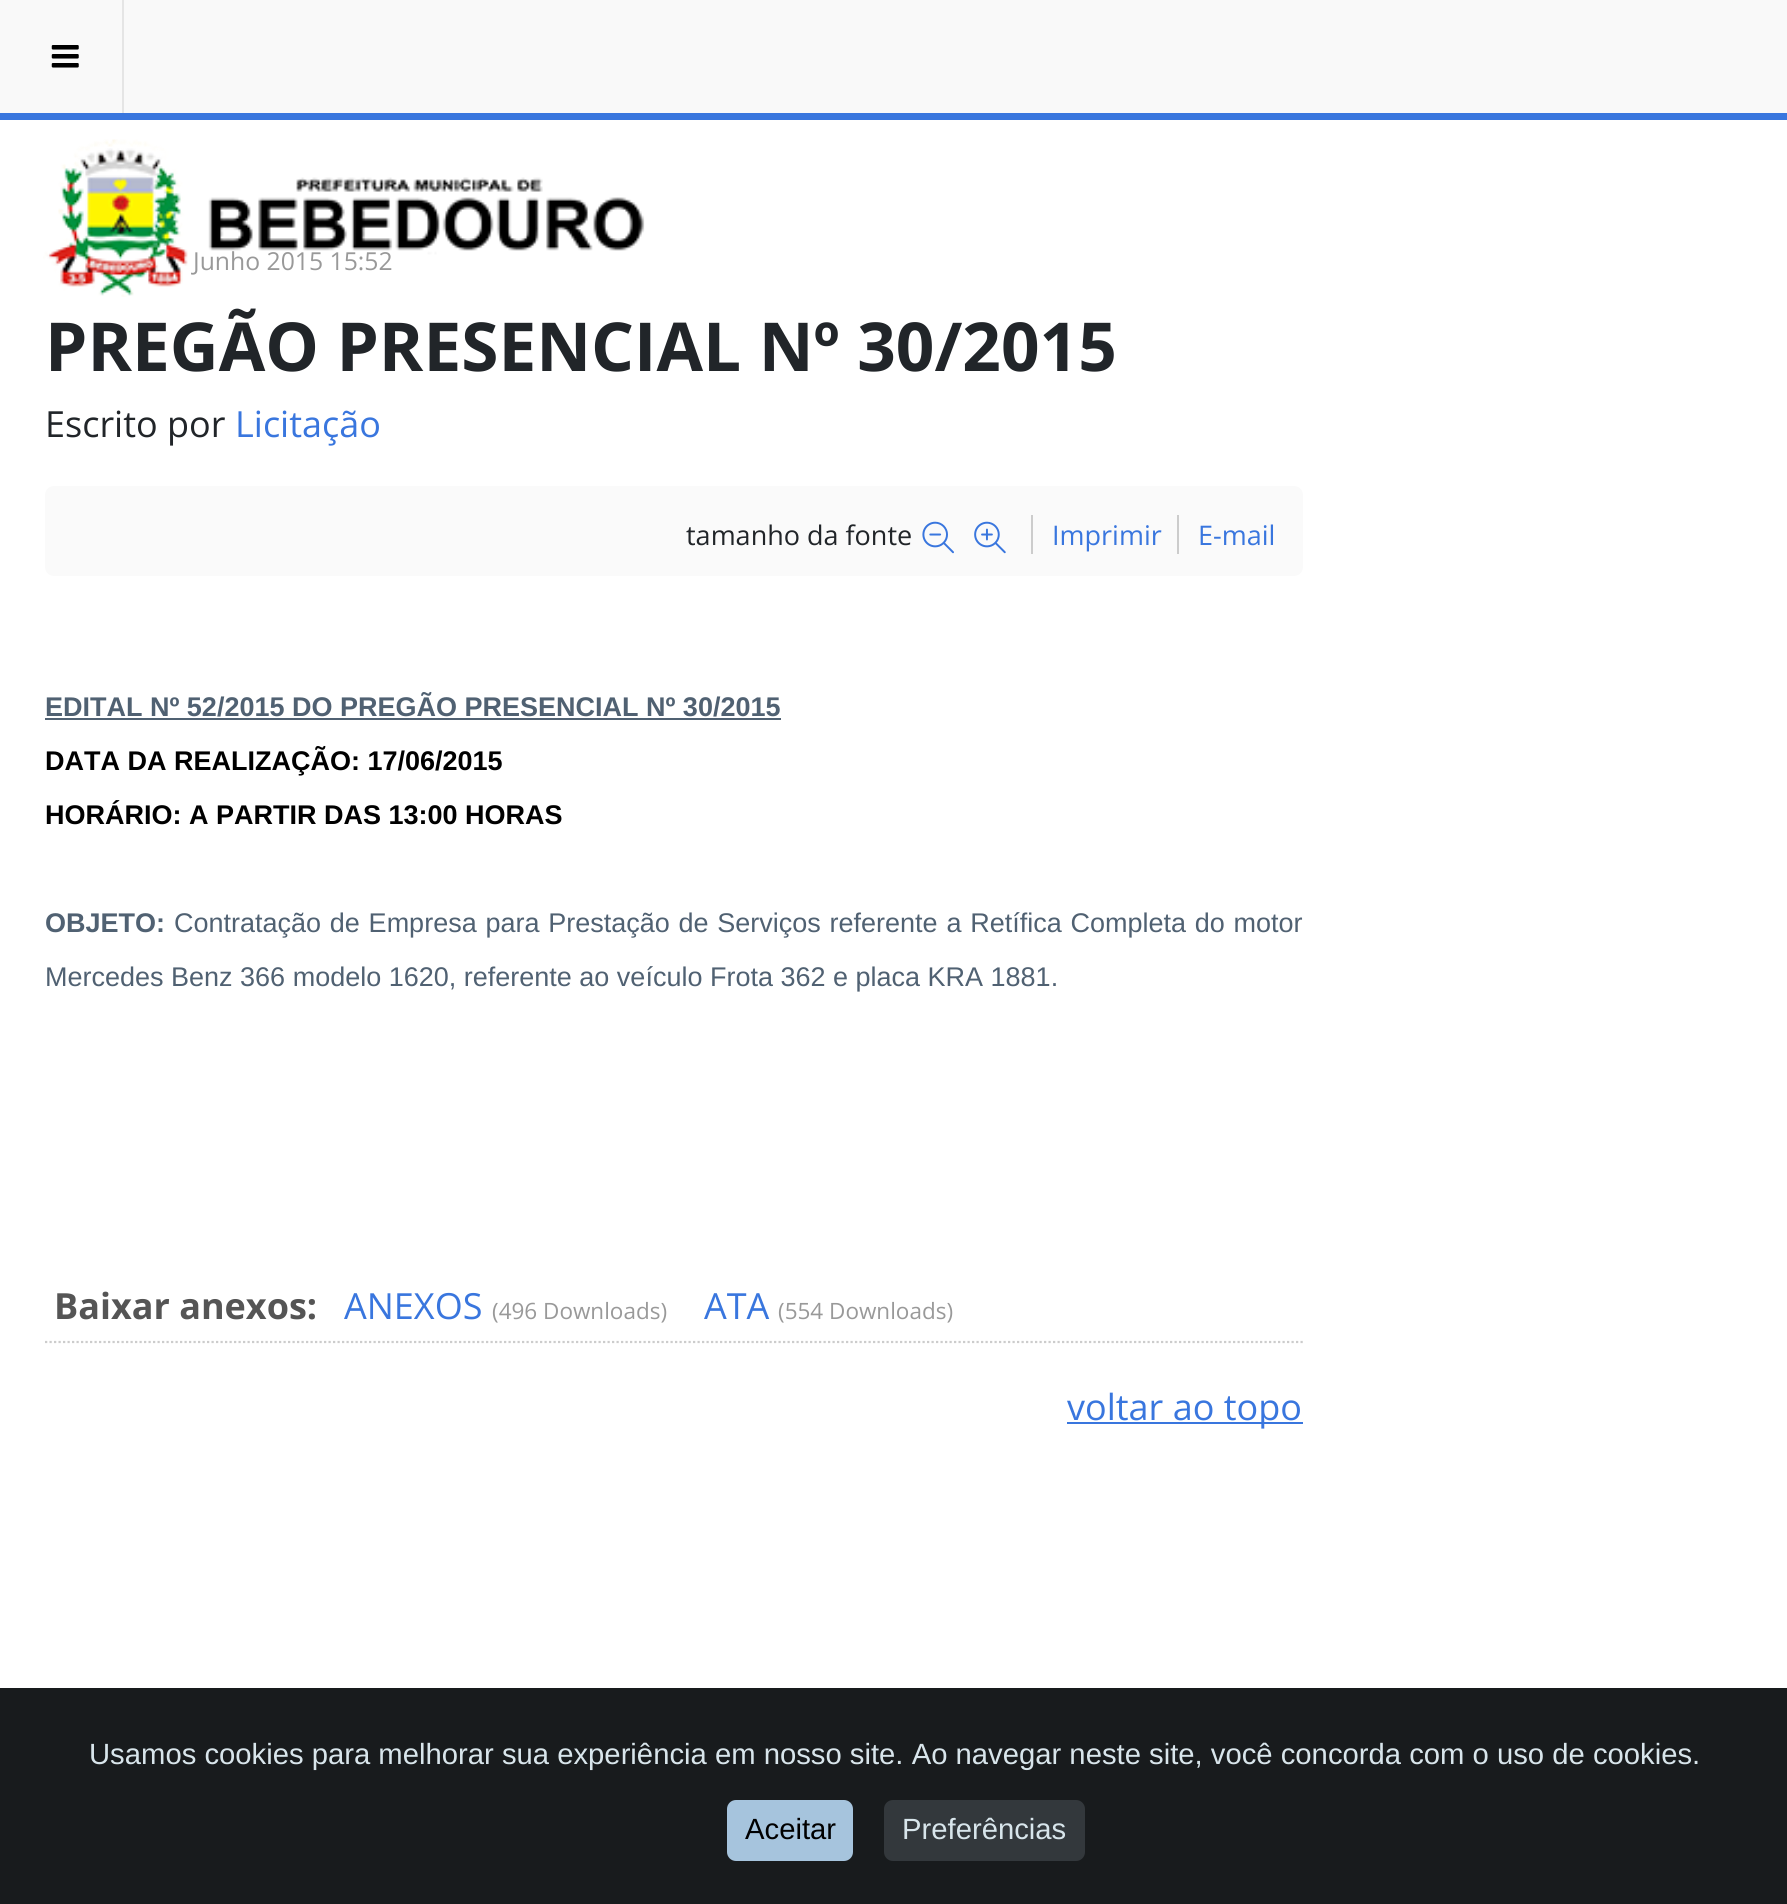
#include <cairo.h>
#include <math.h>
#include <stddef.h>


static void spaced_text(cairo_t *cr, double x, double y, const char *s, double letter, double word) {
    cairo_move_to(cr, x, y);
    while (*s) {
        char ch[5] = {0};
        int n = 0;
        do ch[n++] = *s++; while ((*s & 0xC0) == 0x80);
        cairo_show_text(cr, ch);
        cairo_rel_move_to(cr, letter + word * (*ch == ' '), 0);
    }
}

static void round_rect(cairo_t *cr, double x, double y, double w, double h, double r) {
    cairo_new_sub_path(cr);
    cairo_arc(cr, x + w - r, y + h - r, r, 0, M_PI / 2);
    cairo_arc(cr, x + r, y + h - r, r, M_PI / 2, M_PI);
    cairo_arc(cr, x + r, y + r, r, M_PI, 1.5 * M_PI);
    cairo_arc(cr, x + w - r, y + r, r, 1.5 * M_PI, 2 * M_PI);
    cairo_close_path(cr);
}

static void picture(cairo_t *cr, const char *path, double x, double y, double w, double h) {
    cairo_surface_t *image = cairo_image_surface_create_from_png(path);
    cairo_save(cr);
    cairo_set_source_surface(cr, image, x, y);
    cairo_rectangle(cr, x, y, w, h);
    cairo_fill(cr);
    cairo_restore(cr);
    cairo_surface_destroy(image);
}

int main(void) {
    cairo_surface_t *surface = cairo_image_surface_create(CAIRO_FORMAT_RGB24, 1787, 1904);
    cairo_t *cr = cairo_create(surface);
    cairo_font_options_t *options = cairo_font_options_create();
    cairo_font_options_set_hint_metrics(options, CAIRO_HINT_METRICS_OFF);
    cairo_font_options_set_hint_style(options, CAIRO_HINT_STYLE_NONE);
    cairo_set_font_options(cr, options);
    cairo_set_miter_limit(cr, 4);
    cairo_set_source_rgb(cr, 1, 1, 1);
    cairo_paint(cr);
    cairo_set_source_rgb(cr, 0.973, 0.973, 0.973);
    cairo_rectangle(cr, 0, 0, 1787, 113);
    cairo_fill(cr);
    cairo_set_source_rgb(cr, 0.224, 0.463, 0.871);
    cairo_rectangle(cr, 0, 113, 1787, 7);
    cairo_fill(cr);
    cairo_set_source_rgb(cr, 0.898, 0.898, 0.898);
    cairo_rectangle(cr, 122, 0, 2, 113);
    cairo_fill(cr);
    picture(cr, "img1.png", 51, 45, 28, 23);
    cairo_select_font_face(cr, "Open Sans", CAIRO_FONT_SLANT_NORMAL, CAIRO_FONT_WEIGHT_NORMAL);
    cairo_set_font_size(cr, 24.75);
    cairo_set_source_rgb(cr, 0.6, 0.6, 0.6);
    cairo_move_to(cr, 193, 270);
    cairo_show_text(cr, "Junho 2015 15:52");
    picture(cr, "img2.png", 43, 139, 602, 158);
    cairo_select_font_face(cr, "Open Sans", CAIRO_FONT_SLANT_NORMAL, CAIRO_FONT_WEIGHT_BOLD);
    cairo_set_font_size(cr, 67.5);
    cairo_set_source_rgb(cr, 0.129, 0.145, 0.161);
    cairo_move_to(cr, 45, 371);
    cairo_show_text(cr, "PREGÃO PRESENCIAL Nº 30/2015");
    cairo_select_font_face(cr, "Open Sans", CAIRO_FONT_SLANT_NORMAL, CAIRO_FONT_WEIGHT_NORMAL);
    cairo_set_font_size(cr, 36);
    cairo_move_to(cr, 45, 437);
    cairo_show_text(cr, "Escrito por");
    cairo_set_source_rgb(cr, 0.224, 0.463, 0.871);
    cairo_move_to(cr, 235, 437);
    cairo_show_text(cr, "Licitação");
    cairo_set_source_rgb(cr, 0.98, 0.98, 0.98);
    round_rect(cr, 45, 486, 1258, 90, 9);
    cairo_fill(cr);
    cairo_set_font_size(cr, 27);
    cairo_set_source_rgb(cr, 0.129, 0.145, 0.161);
    cairo_move_to(cr, 686, 545);
    cairo_show_text(cr, "tamanho da fonte");
    picture(cr, "img3.png", 922, 521, 32, 33);
    picture(cr, "img4.png", 974, 521, 32, 33);
    cairo_set_source_rgb(cr, 0.224, 0.463, 0.871);
    cairo_move_to(cr, 1052, 545);
    cairo_show_text(cr, "Imprimir");
    cairo_set_source_rgb(cr, 0.8, 0.8, 0.8);
    cairo_rectangle(cr, 1031, 515, 2, 39);
    cairo_fill(cr);
    cairo_set_source_rgb(cr, 0.224, 0.463, 0.871);
    cairo_move_to(cr, 1198, 545);
    cairo_show_text(cr, "E-mail");
    cairo_set_source_rgb(cr, 0.8, 0.8, 0.8);
    cairo_rectangle(cr, 1177, 515, 2, 39);
    cairo_fill(cr);
    cairo_select_font_face(cr, "Liberation Sans", CAIRO_FONT_SLANT_NORMAL, CAIRO_FONT_WEIGHT_BOLD);
    cairo_set_source_rgb(cr, 0.314, 0.38, 0.447);
    cairo_move_to(cr, 45, 716);
    cairo_show_text(cr, "EDITAL Nº 52/2015 DO PREGÃO PRESENCIAL Nº 30/2015");
    cairo_rectangle(cr, 45, 718, 736, 2);
    cairo_fill(cr);
    cairo_set_source_rgb(cr, 0, 0, 0);
    cairo_move_to(cr, 45, 770);
    cairo_show_text(cr, "DATA DA REALIZAÇÃO: 17/06/2015");
    cairo_move_to(cr, 45, 824);
    cairo_show_text(cr, "HORÁRIO: A PARTIR DAS 13:00 HORAS");
    cairo_set_source_rgb(cr, 0.314, 0.38, 0.447);
    cairo_move_to(cr, 45, 932);
    cairo_show_text(cr, "OBJETO:");
    cairo_select_font_face(cr, "Liberation Sans", CAIRO_FONT_SLANT_NORMAL, CAIRO_FONT_WEIGHT_NORMAL);
    spaced_text(cr, 174, 932, "Contratação de Empresa para Prestação de Serviços referente a Retífica Completa do motor", 0, 1.25);
    cairo_move_to(cr, 45, 986);
    cairo_show_text(cr, "Mercedes Benz 366 modelo 1620, referente ao veículo Frota 362 e placa KRA 1881.");
    cairo_new_path(cr);
    cairo_move_to(cr, 45, 1342);
    cairo_line_to(cr, 1303, 1342);
    cairo_set_source_rgb(cr, 0.8, 0.8, 0.8);
    cairo_set_line_width(cr, 2.2);
    cairo_set_dash(cr, (double[]){2.25, 2.25}, 2, 0);
    cairo_stroke(cr);
    cairo_select_font_face(cr, "Open Sans", CAIRO_FONT_SLANT_NORMAL, CAIRO_FONT_WEIGHT_BOLD);
    cairo_set_font_size(cr, 36);
    cairo_set_source_rgb(cr, 0.333, 0.333, 0.333);
    cairo_move_to(cr, 54, 1319);
    cairo_show_text(cr, "Baixar anexos:");
    cairo_select_font_face(cr, "Open Sans", CAIRO_FONT_SLANT_NORMAL, CAIRO_FONT_WEIGHT_NORMAL);
    cairo_set_source_rgb(cr, 0.224, 0.463, 0.871);
    cairo_move_to(cr, 344, 1319);
    cairo_show_text(cr, "ANEXOS");
    cairo_set_font_size(cr, 22.5);
    cairo_set_source_rgb(cr, 0.6, 0.6, 0.6);
    cairo_move_to(cr, 492, 1319);
    cairo_show_text(cr, "(496 Downloads)");
    cairo_set_font_size(cr, 36);
    cairo_set_source_rgb(cr, 0.224, 0.463, 0.871);
    cairo_move_to(cr, 704, 1319);
    cairo_show_text(cr, "ATA");
    cairo_set_font_size(cr, 22.5);
    cairo_set_source_rgb(cr, 0.6, 0.6, 0.6);
    cairo_move_to(cr, 778, 1319);
    cairo_show_text(cr, "(554 Downloads)");
    cairo_set_source_rgb(cr, 0.224, 0.463, 0.871);
    cairo_rectangle(cr, 1067, 1422, 236, 2);
    cairo_fill(cr);
    cairo_set_font_size(cr, 36);
    cairo_move_to(cr, 1067, 1420);
    cairo_show_text(cr, "voltar ao topo");
    cairo_set_source_rgb(cr, 0.094, 0.106, 0.114);
    cairo_rectangle(cr, 0, 1688, 1787, 216);
    cairo_fill(cr);
    cairo_select_font_face(cr, "Liberation Sans", CAIRO_FONT_SLANT_NORMAL, CAIRO_FONT_WEIGHT_NORMAL);
    cairo_set_font_size(cr, 29.25);
    cairo_set_source_rgb(cr, 0.847, 0.898, 0.918);
    cairo_move_to(cr, 89, 1764);
    cairo_show_text(cr, "Usamos cookies para melhorar sua experiência em nosso site. Ao navegar neste site, você concorda com o uso de cookies.");
    cairo_set_source_rgb(cr, 0.651, 0.769, 0.867);
    round_rect(cr, 727, 1800, 126, 61, 9);
    cairo_fill(cr);
    cairo_set_source_rgb(cr, 0, 0, 0);
    cairo_move_to(cr, 745, 1839);
    cairo_show_text(cr, "Aceitar");
    cairo_set_source_rgb(cr, 0.2, 0.22, 0.235);
    round_rect(cr, 884, 1800, 201, 61, 9);
    cairo_fill(cr);
    cairo_set_source_rgb(cr, 0.847, 0.898, 0.918);
    cairo_move_to(cr, 902, 1839);
    cairo_show_text(cr, "Preferências");
    cairo_surface_write_to_png(surface, "page.png");
    cairo_font_options_destroy(options);
    cairo_destroy(cr);
    cairo_surface_destroy(surface);
    return 0;
}
